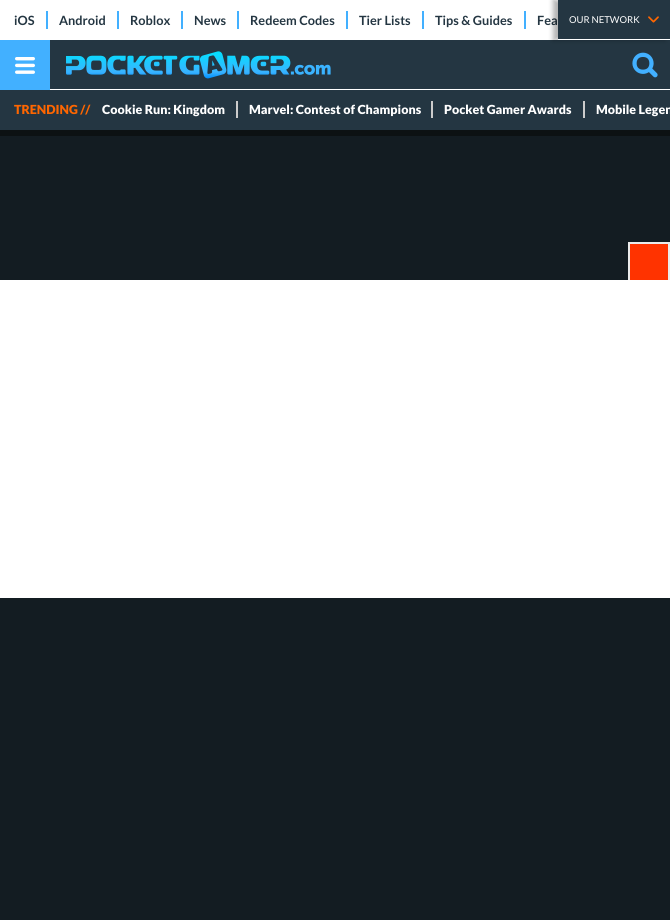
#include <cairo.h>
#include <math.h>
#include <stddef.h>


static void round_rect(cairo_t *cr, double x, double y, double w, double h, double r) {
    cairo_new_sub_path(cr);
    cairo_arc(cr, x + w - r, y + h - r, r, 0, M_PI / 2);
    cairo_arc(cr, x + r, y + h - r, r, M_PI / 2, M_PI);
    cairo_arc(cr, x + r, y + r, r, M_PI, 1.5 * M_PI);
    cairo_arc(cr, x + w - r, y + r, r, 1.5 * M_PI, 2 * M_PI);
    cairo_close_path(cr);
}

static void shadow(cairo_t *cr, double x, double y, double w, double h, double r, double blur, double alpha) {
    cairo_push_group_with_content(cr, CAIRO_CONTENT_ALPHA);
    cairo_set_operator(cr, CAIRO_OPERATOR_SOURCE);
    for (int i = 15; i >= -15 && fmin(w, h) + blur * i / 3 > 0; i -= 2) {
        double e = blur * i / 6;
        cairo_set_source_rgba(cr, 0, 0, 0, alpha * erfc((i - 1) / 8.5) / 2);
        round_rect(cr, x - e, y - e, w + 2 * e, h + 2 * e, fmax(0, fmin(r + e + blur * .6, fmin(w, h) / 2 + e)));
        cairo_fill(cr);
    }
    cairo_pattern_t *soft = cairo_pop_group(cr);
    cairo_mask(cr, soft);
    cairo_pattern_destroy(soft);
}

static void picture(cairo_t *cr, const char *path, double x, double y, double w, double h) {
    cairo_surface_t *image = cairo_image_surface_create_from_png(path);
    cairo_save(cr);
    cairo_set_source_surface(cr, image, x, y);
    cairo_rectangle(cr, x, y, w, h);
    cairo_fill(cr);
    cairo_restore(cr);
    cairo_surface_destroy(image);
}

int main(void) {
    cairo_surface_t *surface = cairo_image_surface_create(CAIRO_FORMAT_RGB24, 670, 920);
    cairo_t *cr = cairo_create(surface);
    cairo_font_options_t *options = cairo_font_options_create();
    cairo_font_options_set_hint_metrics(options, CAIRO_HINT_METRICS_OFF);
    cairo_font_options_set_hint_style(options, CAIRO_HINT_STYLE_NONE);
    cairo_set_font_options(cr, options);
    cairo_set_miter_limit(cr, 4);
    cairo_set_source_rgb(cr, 0.078, 0.11, 0.133);
    cairo_paint(cr);
    cairo_set_source_rgb(cr, 0.047, 0.067, 0.078);
    cairo_rectangle(cr, 0, 130, 670, 6);
    cairo_fill(cr);
    cairo_set_source_rgb(cr, 1, 1, 1);
    cairo_rectangle(cr, 0, 0, 670, 90);
    cairo_fill(cr);
    cairo_select_font_face(cr, "Lato", CAIRO_FONT_SLANT_NORMAL, CAIRO_FONT_WEIGHT_BOLD);
    cairo_set_font_size(cr, 12.75);
    cairo_set_source_rgb(cr, 0.141, 0.212, 0.259);
    cairo_move_to(cr, 14, 25);
    cairo_show_text(cr, "iOS");
    cairo_set_source_rgb(cr, 0.259, 0.69, 1);
    cairo_rectangle(cr, 46, 11, 2, 18);
    cairo_fill(cr);
    cairo_set_source_rgb(cr, 0.141, 0.212, 0.259);
    cairo_move_to(cr, 59, 25);
    cairo_show_text(cr, "Android");
    cairo_set_source_rgb(cr, 0.259, 0.69, 1);
    cairo_rectangle(cr, 117, 11, 2, 18);
    cairo_fill(cr);
    cairo_set_source_rgb(cr, 0.141, 0.212, 0.259);
    cairo_move_to(cr, 130, 25);
    cairo_show_text(cr, "Roblox");
    cairo_set_source_rgb(cr, 0.259, 0.69, 1);
    cairo_rectangle(cr, 181, 11, 2, 18);
    cairo_fill(cr);
    cairo_set_source_rgb(cr, 0.141, 0.212, 0.259);
    cairo_move_to(cr, 194, 25);
    cairo_show_text(cr, "News");
    cairo_set_source_rgb(cr, 0.259, 0.69, 1);
    cairo_rectangle(cr, 237, 11, 2, 18);
    cairo_fill(cr);
    cairo_set_source_rgb(cr, 0.141, 0.212, 0.259);
    cairo_move_to(cr, 250, 25);
    cairo_show_text(cr, "Redeem Codes");
    cairo_set_source_rgb(cr, 0.259, 0.69, 1);
    cairo_rectangle(cr, 346, 11, 2, 18);
    cairo_fill(cr);
    cairo_set_source_rgb(cr, 0.141, 0.212, 0.259);
    cairo_move_to(cr, 359, 25);
    cairo_show_text(cr, "Tier Lists");
    cairo_set_source_rgb(cr, 0.259, 0.69, 1);
    cairo_rectangle(cr, 422, 11, 2, 18);
    cairo_fill(cr);
    cairo_set_source_rgb(cr, 0.141, 0.212, 0.259);
    cairo_move_to(cr, 435, 25);
    cairo_show_text(cr, "Tips & Guides");
    cairo_set_source_rgb(cr, 0.259, 0.69, 1);
    cairo_rectangle(cr, 524, 11, 2, 18);
    cairo_fill(cr);
    cairo_set_source_rgb(cr, 0.141, 0.212, 0.259);
    cairo_move_to(cr, 537, 25);
    cairo_show_text(cr, "Fea");
    cairo_rectangle(cr, 50, 40, 620, 49);
    cairo_fill(cr);
    cairo_set_source_rgb(cr, 0, 0, 0);
    shadow(cr, 553, 0, 112, 40, 0, 2.5, 0.3);
    cairo_set_source_rgb(cr, 0.141, 0.212, 0.259);
    cairo_rectangle(cr, 558, 0, 112, 39);
    cairo_fill(cr);
    cairo_set_source_rgb(cr, 1, 1, 1);
    cairo_rectangle(cr, 558, 39, 112, 1);
    cairo_fill(cr);
    cairo_select_font_face(cr, "Lato", CAIRO_FONT_SLANT_NORMAL, CAIRO_FONT_WEIGHT_NORMAL);
    cairo_set_font_size(cr, 9.5);
    cairo_move_to(cr, 569, 23);
    cairo_show_text(cr, "OUR NETWORK");
    picture(cr, "img1.png", 648, 16, 11, 7);
    cairo_set_source_rgb(cr, 0.259, 0.69, 1);
    cairo_rectangle(cr, 0, 40, 50, 50);
    cairo_fill(cr);
    picture(cr, "img2.png", 15, 57, 20, 17);
    picture(cr, "img3.png", 66, 51, 265, 28);
    picture(cr, "img4.png", 632, 52, 26, 26);
    cairo_set_source_rgb(cr, 0.141, 0.212, 0.259);
    cairo_rectangle(cr, 0, 90, 670, 40);
    cairo_fill(cr);
    cairo_select_font_face(cr, "Lato Black", CAIRO_FONT_SLANT_NORMAL, CAIRO_FONT_WEIGHT_NORMAL);
    cairo_set_font_size(cr, 12.5);
    cairo_set_source_rgb(cr, 1, 0.4, 0);
    cairo_move_to(cr, 14, 114);
    cairo_show_text(cr, "TRENDING //");
    cairo_set_source_rgb(cr, 1, 1, 1);
    cairo_move_to(cr, 102, 114);
    cairo_show_text(cr, "Cookie Run: Kingdom");
    cairo_set_source_rgb(cr, 0.8, 0.8, 0.8);
    cairo_rectangle(cr, 236, 101, 2, 17);
    cairo_fill(cr);
    cairo_set_source_rgb(cr, 1, 1, 1);
    cairo_move_to(cr, 249, 114);
    cairo_show_text(cr, "Marvel: Contest of Champions");
    cairo_set_source_rgb(cr, 0.8, 0.8, 0.8);
    cairo_rectangle(cr, 431, 101, 2, 17);
    cairo_fill(cr);
    cairo_set_source_rgb(cr, 1, 1, 1);
    cairo_move_to(cr, 444, 114);
    cairo_show_text(cr, "Pocket Gamer Awards");
    cairo_set_source_rgb(cr, 0.8, 0.8, 0.8);
    cairo_rectangle(cr, 583, 101, 2, 17);
    cairo_fill(cr);
    cairo_set_source_rgb(cr, 1, 1, 1);
    cairo_move_to(cr, 596, 114);
    cairo_show_text(cr, "Mobile Legen");
    cairo_set_source_rgb(cr, 0.918, 0.918, 0.918);
    cairo_rectangle(cr, 628, 242, 42, 38);
    cairo_fill(cr);
    cairo_set_source_rgb(cr, 1, 0.2, 0);
    cairo_rectangle(cr, 630, 244, 38, 36);
    cairo_fill(cr);
    cairo_set_source_rgb(cr, 1, 1, 1);
    cairo_rectangle(cr, 0, 280, 670, 318);
    cairo_fill(cr);
    cairo_surface_write_to_png(surface, "page.png");
    cairo_font_options_destroy(options);
    cairo_destroy(cr);
    cairo_surface_destroy(surface);
    return 0;
}
